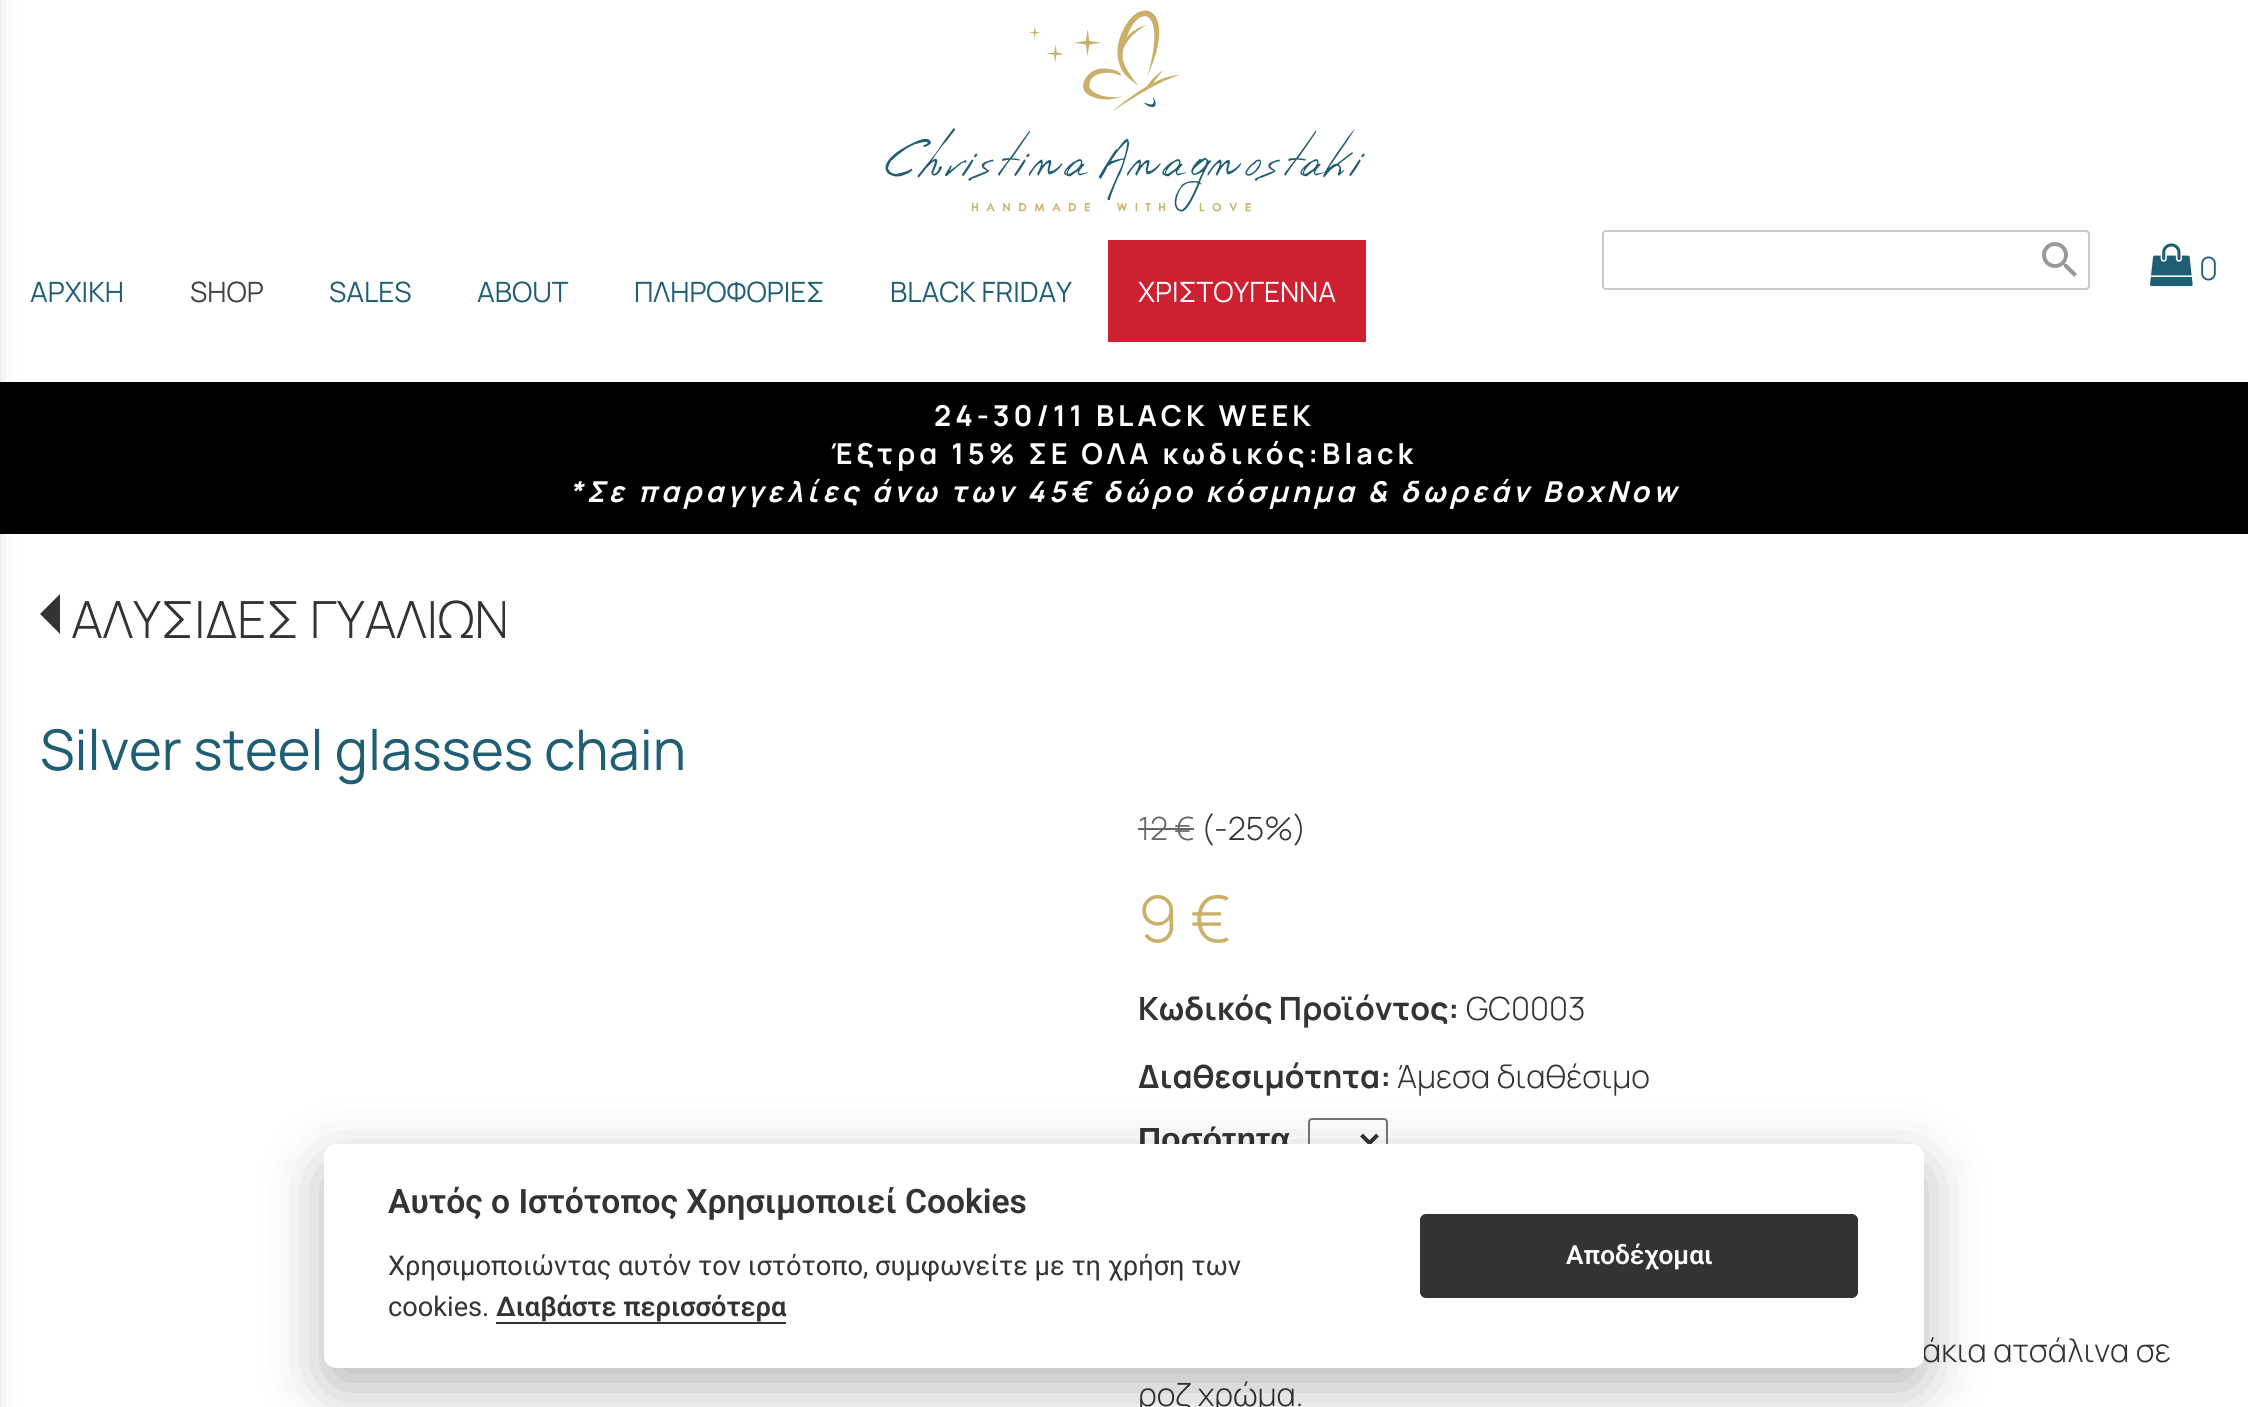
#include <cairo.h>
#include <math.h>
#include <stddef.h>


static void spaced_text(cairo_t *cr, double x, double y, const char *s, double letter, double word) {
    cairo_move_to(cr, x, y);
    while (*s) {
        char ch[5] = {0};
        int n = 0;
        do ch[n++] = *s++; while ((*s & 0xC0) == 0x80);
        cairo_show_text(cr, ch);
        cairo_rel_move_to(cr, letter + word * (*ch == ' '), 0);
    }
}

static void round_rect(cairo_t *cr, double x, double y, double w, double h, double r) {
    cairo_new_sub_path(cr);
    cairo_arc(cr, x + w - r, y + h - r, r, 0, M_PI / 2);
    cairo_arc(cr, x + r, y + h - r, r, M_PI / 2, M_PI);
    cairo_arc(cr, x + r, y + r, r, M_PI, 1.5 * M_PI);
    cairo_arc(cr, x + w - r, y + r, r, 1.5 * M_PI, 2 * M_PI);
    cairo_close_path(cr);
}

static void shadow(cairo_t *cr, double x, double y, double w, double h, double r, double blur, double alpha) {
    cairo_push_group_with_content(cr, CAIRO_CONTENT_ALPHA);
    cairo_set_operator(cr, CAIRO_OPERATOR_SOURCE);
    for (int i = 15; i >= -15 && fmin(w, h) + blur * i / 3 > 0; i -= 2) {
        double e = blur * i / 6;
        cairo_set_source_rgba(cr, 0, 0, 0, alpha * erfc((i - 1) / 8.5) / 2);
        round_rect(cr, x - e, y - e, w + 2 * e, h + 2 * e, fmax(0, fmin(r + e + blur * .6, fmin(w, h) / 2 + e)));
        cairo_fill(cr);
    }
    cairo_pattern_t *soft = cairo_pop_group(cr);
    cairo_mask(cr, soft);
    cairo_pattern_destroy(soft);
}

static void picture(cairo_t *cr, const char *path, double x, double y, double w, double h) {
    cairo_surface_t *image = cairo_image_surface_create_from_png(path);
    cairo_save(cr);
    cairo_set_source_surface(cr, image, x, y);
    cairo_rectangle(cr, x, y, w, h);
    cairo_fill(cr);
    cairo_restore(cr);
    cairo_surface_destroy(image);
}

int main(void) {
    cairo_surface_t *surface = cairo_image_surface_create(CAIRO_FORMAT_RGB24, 2248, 1407);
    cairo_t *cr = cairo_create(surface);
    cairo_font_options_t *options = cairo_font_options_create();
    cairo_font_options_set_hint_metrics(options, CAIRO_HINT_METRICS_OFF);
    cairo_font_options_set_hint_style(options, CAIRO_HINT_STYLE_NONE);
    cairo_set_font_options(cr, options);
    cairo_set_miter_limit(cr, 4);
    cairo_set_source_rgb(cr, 1, 1, 1);
    cairo_paint(cr);
    cairo_set_source_rgb(cr, 0, 0, 0);
    cairo_rectangle(cr, 0, 382, 2248, 152);
    cairo_fill(cr);
    cairo_set_source_rgb(cr, 0, 0, 0);
    shadow(cr, -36, 0, 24, 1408, 0, 12, 0.4);
    picture(cr, "img1.png", 885, 10, 480, 202);
    round_rect(cr, 1603, 231, 486, 58, 3);
    cairo_set_source_rgb(cr, 0.792, 0.792, 0.792);
    cairo_stroke(cr);
    picture(cr, "img2.png", 2042, 242, 35, 35);
    picture(cr, "img3.png", 2150, 243, 43, 44);
    cairo_select_font_face(cr, "Manrope Light", CAIRO_FONT_SLANT_NORMAL, CAIRO_FONT_WEIGHT_NORMAL);
    cairo_set_font_size(cr, 32);
    cairo_set_source_rgb(cr, 0.125, 0.369, 0.455);
    cairo_move_to(cr, 2199, 280);
    cairo_show_text(cr, "0");
    cairo_select_font_face(cr, "Manrope", CAIRO_FONT_SLANT_NORMAL, CAIRO_FONT_WEIGHT_NORMAL);
    cairo_set_font_size(cr, 28);
    cairo_move_to(cr, 30, 302);
    cairo_show_text(cr, "ΑΡΧΙΚΗ");
    cairo_set_source_rgb(cr, 0.267, 0.267, 0.267);
    cairo_move_to(cr, 190, 302);
    cairo_show_text(cr, "SHOP");
    cairo_set_source_rgb(cr, 0.125, 0.369, 0.455);
    cairo_move_to(cr, 329, 302);
    cairo_show_text(cr, "SALES");
    cairo_move_to(cr, 477, 302);
    cairo_show_text(cr, "ABOUT");
    cairo_move_to(cr, 634, 302);
    cairo_show_text(cr, "ΠΛΗΡΟΦΟΡΙΕΣ");
    cairo_move_to(cr, 890, 302);
    cairo_show_text(cr, "BLACK FRIDAY");
    cairo_set_source_rgb(cr, 0.808, 0.125, 0.188);
    cairo_rectangle(cr, 1108, 240, 258, 102);
    cairo_fill(cr);
    cairo_set_source_rgb(cr, 1, 1, 1);
    cairo_move_to(cr, 1138, 302);
    cairo_show_text(cr, "ΧΡΙΣΤΟΥΓΕΝΝΑ");
    cairo_select_font_face(cr, "Manrope", CAIRO_FONT_SLANT_NORMAL, CAIRO_FONT_WEIGHT_BOLD);
    cairo_set_font_size(cr, 28.8);
    spaced_text(cr, 934, 426, "24-30/11 BLACK WEEK", 4, 0);
    spaced_text(cr, 831, 464, "Έξτρα 15% ΣΕ ΟΛΑ κωδικός:Black", 4, 0);
    cairo_select_font_face(cr, "Manrope", CAIRO_FONT_SLANT_ITALIC, CAIRO_FONT_WEIGHT_BOLD);
    spaced_text(cr, 569, 502, "*Σε παραγγελίες άνω των 45€ δώρο κόσμημα & δωρεάν BoxNow", 4, 0);
    cairo_set_source_rgb(cr, 0.2, 0.2, 0.2);
    cairo_new_path(cr);
    cairo_move_to(cr, 60, 594);
    cairo_line_to(cr, 60, 634);
    cairo_line_to(cr, 40, 614);
    cairo_close_path(cr);
    cairo_fill(cr);
    cairo_select_font_face(cr, "Manrope Light", CAIRO_FONT_SLANT_NORMAL, CAIRO_FONT_WEIGHT_NORMAL);
    cairo_set_font_size(cr, 51.25);
    cairo_move_to(cr, 71, 638);
    cairo_show_text(cr, "ΑΛΥΣΙΔΕΣ ΓΥΑΛΙΩΝ");
    cairo_select_font_face(cr, "Manrope", CAIRO_FONT_SLANT_NORMAL, CAIRO_FONT_WEIGHT_NORMAL);
    cairo_set_font_size(cr, 56);
    cairo_set_source_rgb(cr, 0.125, 0.369, 0.455);
    cairo_move_to(cr, 40, 770);
    cairo_show_text(cr, "Silver steel glasses chain");
    cairo_select_font_face(cr, "Manrope Light", CAIRO_FONT_SLANT_NORMAL, CAIRO_FONT_WEIGHT_NORMAL);
    cairo_set_font_size(cr, 32);
    cairo_set_source_rgb(cr, 0.4, 0.4, 0.4);
    cairo_move_to(cr, 1138, 840);
    cairo_show_text(cr, "12 €");
    cairo_rectangle(cr, 1138, 828, 56, 2);
    cairo_fill(cr);
    cairo_set_source_rgb(cr, 0.2, 0.2, 0.2);
    cairo_move_to(cr, 1201, 840);
    cairo_show_text(cr, "(-25%)");
    cairo_set_font_size(cr, 64);
    cairo_set_source_rgb(cr, 0.8, 0.69, 0.416);
    cairo_move_to(cr, 1138, 942);
    cairo_show_text(cr, "9 €");
    cairo_select_font_face(cr, "Manrope", CAIRO_FONT_SLANT_NORMAL, CAIRO_FONT_WEIGHT_BOLD);
    cairo_set_font_size(cr, 32);
    cairo_set_source_rgb(cr, 0.2, 0.2, 0.2);
    cairo_move_to(cr, 1138, 1020);
    cairo_show_text(cr, "Κωδικός Προϊόντος:");
    cairo_select_font_face(cr, "Manrope Light", CAIRO_FONT_SLANT_NORMAL, CAIRO_FONT_WEIGHT_NORMAL);
    cairo_move_to(cr, 1466, 1020);
    cairo_show_text(cr, "GC0003");
    cairo_select_font_face(cr, "Manrope", CAIRO_FONT_SLANT_NORMAL, CAIRO_FONT_WEIGHT_BOLD);
    cairo_move_to(cr, 1138, 1088);
    cairo_show_text(cr, "Διαθεσιμότητα:");
    cairo_select_font_face(cr, "Manrope Light", CAIRO_FONT_SLANT_NORMAL, CAIRO_FONT_WEIGHT_NORMAL);
    cairo_move_to(cr, 1397, 1088);
    cairo_show_text(cr, "Άμεσα διαθέσιμο");
    cairo_select_font_face(cr, "Liberation Sans", CAIRO_FONT_SLANT_NORMAL, CAIRO_FONT_WEIGHT_BOLD);
    cairo_move_to(cr, 1138, 1150);
    cairo_show_text(cr, "Ποσότητα");
    round_rect(cr, 1309, 1119, 78, 40, 3);
    cairo_set_source_rgb(cr, 0.463, 0.463, 0.463);
    cairo_stroke(cr);
    cairo_new_path(cr);
    cairo_move_to(cr, 1361.5, 1135);
    cairo_line_to(cr, 1369.5, 1143);
    cairo_line_to(cr, 1377.5, 1135);
    cairo_set_source_rgb(cr, 0.2, 0.2, 0.2);
    cairo_set_line_width(cr, 4);
    cairo_stroke(cr);
    cairo_select_font_face(cr, "Manrope Light", CAIRO_FONT_SLANT_NORMAL, CAIRO_FONT_WEIGHT_NORMAL);
    cairo_move_to(cr, 1922, 1362);
    cairo_show_text(cr, "άκια ατσάλινα σε");
    cairo_move_to(cr, 1138, 1406);
    cairo_show_text(cr, "ροζ χρώμα.");
    cairo_set_source_rgb(cr, 0.008, 0.008, 0.012);
    shadow(cr, 324, 1164, 1600, 224, 12, 30, 0.28);
    cairo_set_source_rgb(cr, 1, 1, 1);
    round_rect(cr, 324, 1144, 1600, 224, 12);
    cairo_fill(cr);
    cairo_select_font_face(cr, "Roboto SemiBold", CAIRO_FONT_SLANT_NORMAL, CAIRO_FONT_WEIGHT_NORMAL);
    cairo_set_font_size(cr, 33.6);
    cairo_set_source_rgb(cr, 0.2, 0.2, 0.2);
    cairo_move_to(cr, 388, 1213);
    cairo_show_text(cr, "Αυτός ο Ιστότοπος Χρησιμοποιεί Cookies");
    cairo_select_font_face(cr, "Roboto", CAIRO_FONT_SLANT_NORMAL, CAIRO_FONT_WEIGHT_NORMAL);
    cairo_set_font_size(cr, 27.2);
    cairo_move_to(cr, 388, 1275);
    cairo_show_text(cr, "Χρησιμοποιώντας αυτόν τον ιστότοπο, συμφωνείτε με τη χρήση των");
    cairo_move_to(cr, 388, 1316);
    cairo_show_text(cr, "cookies.");
    cairo_select_font_face(cr, "Roboto SemiBold", CAIRO_FONT_SLANT_NORMAL, CAIRO_FONT_WEIGHT_NORMAL);
    cairo_move_to(cr, 496, 1316);
    cairo_show_text(cr, "Διαβάστε περισσότερα");
    cairo_rectangle(cr, 496, 1322, 290, 2);
    cairo_fill(cr);
    round_rect(cr, 1419, 1213, 440, 86, 7);
    cairo_fill_preserve(cr);
    cairo_set_source_rgb(cr, 1, 1, 1);
    cairo_set_line_width(cr, 2);
    cairo_stroke(cr);
    cairo_set_font_size(cr, 26.25);
    cairo_move_to(cr, 1566, 1264);
    cairo_show_text(cr, "Αποδέχομαι");
    cairo_surface_write_to_png(surface, "page.png");
    cairo_font_options_destroy(options);
    cairo_destroy(cr);
    cairo_surface_destroy(surface);
    return 0;
}
